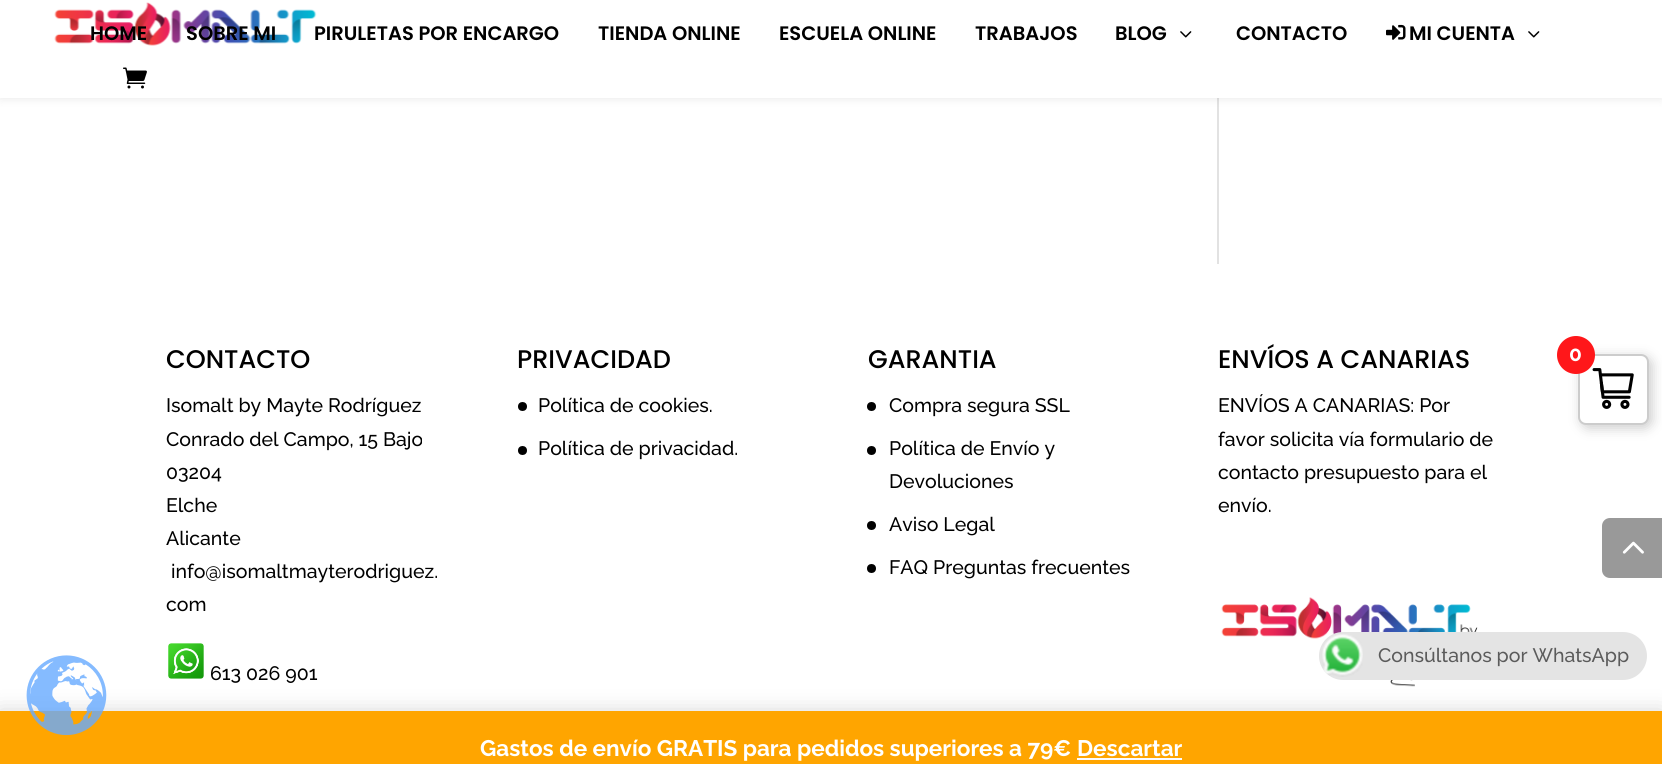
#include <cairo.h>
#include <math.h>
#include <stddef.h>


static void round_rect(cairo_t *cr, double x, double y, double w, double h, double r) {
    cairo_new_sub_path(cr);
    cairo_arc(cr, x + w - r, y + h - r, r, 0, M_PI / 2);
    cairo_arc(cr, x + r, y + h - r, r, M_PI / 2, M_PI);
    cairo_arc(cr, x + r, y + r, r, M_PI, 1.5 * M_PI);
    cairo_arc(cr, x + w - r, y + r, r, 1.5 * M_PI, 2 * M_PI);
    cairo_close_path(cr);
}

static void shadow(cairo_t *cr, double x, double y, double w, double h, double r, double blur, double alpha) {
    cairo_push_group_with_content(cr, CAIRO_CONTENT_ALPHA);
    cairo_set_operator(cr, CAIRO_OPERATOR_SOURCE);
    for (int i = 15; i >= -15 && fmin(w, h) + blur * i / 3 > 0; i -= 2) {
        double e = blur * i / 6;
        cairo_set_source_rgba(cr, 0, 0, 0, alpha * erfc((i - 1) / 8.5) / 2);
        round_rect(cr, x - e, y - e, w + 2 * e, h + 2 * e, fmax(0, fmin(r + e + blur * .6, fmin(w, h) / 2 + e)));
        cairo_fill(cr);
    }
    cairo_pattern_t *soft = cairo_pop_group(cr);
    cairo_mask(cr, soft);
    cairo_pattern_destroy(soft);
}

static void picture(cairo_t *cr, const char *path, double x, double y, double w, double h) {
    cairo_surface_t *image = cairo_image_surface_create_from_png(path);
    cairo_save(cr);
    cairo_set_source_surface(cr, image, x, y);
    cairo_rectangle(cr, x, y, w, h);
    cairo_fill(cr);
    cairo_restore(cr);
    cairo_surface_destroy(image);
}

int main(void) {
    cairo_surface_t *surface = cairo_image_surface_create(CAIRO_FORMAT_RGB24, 1662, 764);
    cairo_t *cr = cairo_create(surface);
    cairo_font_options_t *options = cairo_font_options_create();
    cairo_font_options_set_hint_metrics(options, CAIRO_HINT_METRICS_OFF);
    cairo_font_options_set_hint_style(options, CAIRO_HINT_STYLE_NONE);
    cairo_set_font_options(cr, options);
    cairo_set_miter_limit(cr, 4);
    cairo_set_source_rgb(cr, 1, 1, 1);
    cairo_paint(cr);
    cairo_set_source_rgb(cr, 0.886, 0.886, 0.886);
    cairo_rectangle(cr, 1217, 98, 2, 166);
    cairo_fill(cr);
    cairo_set_source_rgb(cr, 0, 0, 0);
    shadow(cr, 0, 0, 1662, 98, 0, 5, 0.1);
    cairo_set_source_rgb(cr, 1, 1, 1);
    cairo_rectangle(cr, 0, 0, 1662, 98);
    cairo_fill(cr);
    picture(cr, "img1.png", 54, 2, 263, 44);
    cairo_select_font_face(cr, "Poppins SemiBold", CAIRO_FONT_SLANT_NORMAL, CAIRO_FONT_WEIGHT_NORMAL);
    cairo_set_font_size(cr, 19.5);
    cairo_set_source_rgb(cr, 0, 0, 0);
    cairo_move_to(cr, 90, 40);
    cairo_show_text(cr, "HOME");
    cairo_move_to(cr, 186, 40);
    cairo_show_text(cr, "SOBRE MI");
    cairo_move_to(cr, 314, 40);
    cairo_show_text(cr, "PIRULETAS POR ENCARGO");
    cairo_move_to(cr, 598, 40);
    cairo_show_text(cr, "TIENDA ONLINE");
    cairo_move_to(cr, 779, 40);
    cairo_show_text(cr, "ESCUELA ONLINE");
    cairo_move_to(cr, 975, 40);
    cairo_show_text(cr, "TRABAJOS");
    cairo_move_to(cr, 1115, 40);
    cairo_show_text(cr, "BLOG");
    picture(cr, "img2.png", 1180, 31, 12, 7);
    cairo_move_to(cr, 1236, 40);
    cairo_show_text(cr, "CONTACTO");
    picture(cr, "img3.png", 1386, 24, 20, 16);
    cairo_move_to(cr, 1409, 40);
    cairo_show_text(cr, "MI CUENTA");
    picture(cr, "img2.png", 1528, 31, 12, 7);
    picture(cr, "img4.png", 123, 67, 24, 22);
    cairo_select_font_face(cr, "Poppins Medium", CAIRO_FONT_SLANT_NORMAL, CAIRO_FONT_WEIGHT_NORMAL);
    cairo_set_font_size(cr, 25.5);
    cairo_move_to(cr, 166, 368);
    cairo_show_text(cr, "CONTACTO");
    cairo_select_font_face(cr, "Raleway Thin", CAIRO_FONT_SLANT_NORMAL, CAIRO_FONT_WEIGHT_NORMAL);
    cairo_set_font_size(cr, 19.5);
    cairo_move_to(cr, 166, 412);
    cairo_show_text(cr, "Isomalt by Mayte Rodríguez");
    cairo_move_to(cr, 166, 446);
    cairo_show_text(cr, "Conrado del Campo, 15 Bajo");
    cairo_move_to(cr, 166, 479);
    cairo_show_text(cr, "03204");
    cairo_move_to(cr, 166, 512);
    cairo_show_text(cr, "Elche");
    cairo_move_to(cr, 166, 545);
    cairo_show_text(cr, "Alicante");
    cairo_move_to(cr, 171, 578);
    cairo_show_text(cr, "info@isomaltmayterodriguez.");
    cairo_move_to(cr, 166, 611);
    cairo_show_text(cr, "com");
    picture(cr, "img5.png", 168, 643, 36, 36);
    cairo_move_to(cr, 210, 680);
    cairo_show_text(cr, "613 026 901");
    cairo_select_font_face(cr, "Poppins Medium", CAIRO_FONT_SLANT_NORMAL, CAIRO_FONT_WEIGHT_NORMAL);
    cairo_set_font_size(cr, 25.5);
    cairo_move_to(cr, 517, 368);
    cairo_show_text(cr, "PRIVACIDAD");
    cairo_new_path(cr);
    cairo_arc(cr, 522.5, 406.5, 4.5, 0, 2 * M_PI);
    cairo_fill(cr);
    cairo_select_font_face(cr, "Raleway Thin", CAIRO_FONT_SLANT_NORMAL, CAIRO_FONT_WEIGHT_NORMAL);
    cairo_set_font_size(cr, 19.5);
    cairo_move_to(cr, 538, 412);
    cairo_show_text(cr, "Política de cookies.");
    cairo_new_path(cr);
    cairo_arc(cr, 522.5, 450.5, 4.5, 0, 2 * M_PI);
    cairo_fill(cr);
    cairo_move_to(cr, 538, 455);
    cairo_show_text(cr, "Política de privacidad.");
    cairo_select_font_face(cr, "Poppins Medium", CAIRO_FONT_SLANT_NORMAL, CAIRO_FONT_WEIGHT_NORMAL);
    cairo_set_font_size(cr, 25.5);
    cairo_move_to(cr, 868, 368);
    cairo_show_text(cr, "GARANTIA");
    cairo_new_path(cr);
    cairo_arc(cr, 871.5, 406.5, 4.5, 0, 2 * M_PI);
    cairo_fill(cr);
    cairo_select_font_face(cr, "Raleway Thin", CAIRO_FONT_SLANT_NORMAL, CAIRO_FONT_WEIGHT_NORMAL);
    cairo_set_font_size(cr, 19.5);
    cairo_move_to(cr, 889, 412);
    cairo_show_text(cr, "Compra segura SSL");
    cairo_new_path(cr);
    cairo_arc(cr, 871.5, 450.5, 4.5, 0, 2 * M_PI);
    cairo_fill(cr);
    cairo_move_to(cr, 889, 455);
    cairo_show_text(cr, "Política de Envío y");
    cairo_move_to(cr, 889, 488);
    cairo_show_text(cr, "Devoluciones");
    cairo_new_path(cr);
    cairo_arc(cr, 871.5, 525.5, 4.5, 0, 2 * M_PI);
    cairo_fill(cr);
    cairo_move_to(cr, 889, 531);
    cairo_show_text(cr, "Aviso Legal");
    cairo_new_path(cr);
    cairo_arc(cr, 871.5, 568.5, 4.5, 0, 2 * M_PI);
    cairo_fill(cr);
    cairo_move_to(cr, 889, 574);
    cairo_show_text(cr, "FAQ Preguntas frecuentes");
    cairo_select_font_face(cr, "Poppins Medium", CAIRO_FONT_SLANT_NORMAL, CAIRO_FONT_WEIGHT_NORMAL);
    cairo_set_font_size(cr, 25.5);
    cairo_move_to(cr, 1218, 368);
    cairo_show_text(cr, "ENVÍOS A CANARIAS");
    cairo_select_font_face(cr, "Raleway Thin", CAIRO_FONT_SLANT_NORMAL, CAIRO_FONT_WEIGHT_NORMAL);
    cairo_set_font_size(cr, 19.5);
    cairo_move_to(cr, 1218, 412);
    cairo_show_text(cr, "ENVÍOS A CANARIAS: Por");
    cairo_move_to(cr, 1218, 446);
    cairo_show_text(cr, "favor solicita vía formulario de");
    cairo_move_to(cr, 1218, 479);
    cairo_show_text(cr, "contacto presupuesto para el");
    cairo_move_to(cr, 1218, 512);
    cairo_show_text(cr, "envío.");
    picture(cr, "img6.png", 1221, 597, 257, 90);
    cairo_set_source_rgb(cr, 0.6, 0.6, 0.6);
    cairo_new_path(cr);
    cairo_move_to(cr, 1610, 518);
    cairo_line_to(cr, 1662, 518);
    cairo_line_to(cr, 1662, 578);
    cairo_line_to(cr, 1610, 578);
    cairo_curve_to(cr, 1605.5, 578, 1602, 574.5, 1602, 570);
    cairo_line_to(cr, 1602, 526);
    cairo_curve_to(cr, 1602, 521.5, 1605.5, 518, 1610, 518);
    cairo_close_path(cr);
    cairo_fill(cr);
    picture(cr, "img7.png", 1622, 541, 22, 13);
    cairo_set_source_rgb(cr, 0.8, 0.8, 0.8);
    shadow(cr, 1581, 357, 71, 71, 8, 6, 1);
    cairo_set_source_rgb(cr, 1, 1, 1);
    round_rect(cr, 1579, 355, 69, 69, 7);
    cairo_fill_preserve(cr);
    cairo_set_source_rgb(cr, 0.8, 0.8, 0.8);
    cairo_stroke(cr);
    picture(cr, "img8.png", 1592, 368, 42, 41);
    cairo_set_source_rgb(cr, 1, 0.09, 0.102);
    cairo_arc(cr, 1576, 355, 19, 0, 2 * M_PI);
    cairo_fill(cr);
    cairo_select_font_face(cr, "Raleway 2 Thin", CAIRO_FONT_SLANT_NORMAL, CAIRO_FONT_WEIGHT_NORMAL);
    cairo_set_font_size(cr, 21);
    cairo_set_source_rgb(cr, 1, 1, 1);
    cairo_move_to(cr, 1569, 361);
    cairo_show_text(cr, "0");
    cairo_set_source_rgb(cr, 0, 0, 0);
    shadow(cr, 0, 713, 1662, 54, 0, 11, 0.2);
    cairo_set_source_rgb(cr, 1, 0.647, 0);
    cairo_rectangle(cr, 0, 711, 1662, 53);
    cairo_fill(cr);
    picture(cr, "img9.png", 26, 655, 81, 81);
    cairo_set_source_rgb(cr, 0.894, 0.894, 0.894);
    round_rect(cr, 1319, 632, 328, 48, 24);
    cairo_fill(cr);
    picture(cr, "img10.png", 1322, 634, 41, 43);
    cairo_select_font_face(cr, "Raleway Thin", CAIRO_FONT_SLANT_NORMAL, CAIRO_FONT_WEIGHT_NORMAL);
    cairo_set_font_size(cr, 19.5);
    cairo_set_source_rgb(cr, 0.357, 0.357, 0.357);
    cairo_move_to(cr, 1378, 662);
    cairo_show_text(cr, "Consúltanos por WhatsApp");
    cairo_select_font_face(cr, "Raleway 2 Thin", CAIRO_FONT_SLANT_NORMAL, CAIRO_FONT_WEIGHT_NORMAL);
    cairo_set_font_size(cr, 22.5);
    cairo_set_source_rgb(cr, 1, 1, 1);
    cairo_move_to(cr, 480, 756);
    cairo_show_text(cr, "Gastos de envío GRATIS para pedidos superiores a 79€");
    cairo_move_to(cr, 1077, 756);
    cairo_show_text(cr, "Descartar");
    cairo_set_source_rgb(cr, 0.988, 0.984, 0.996);
    cairo_rectangle(cr, 1077, 758, 105, 2);
    cairo_fill(cr);
    cairo_surface_write_to_png(surface, "page.png");
    cairo_font_options_destroy(options);
    cairo_destroy(cr);
    cairo_surface_destroy(surface);
    return 0;
}
